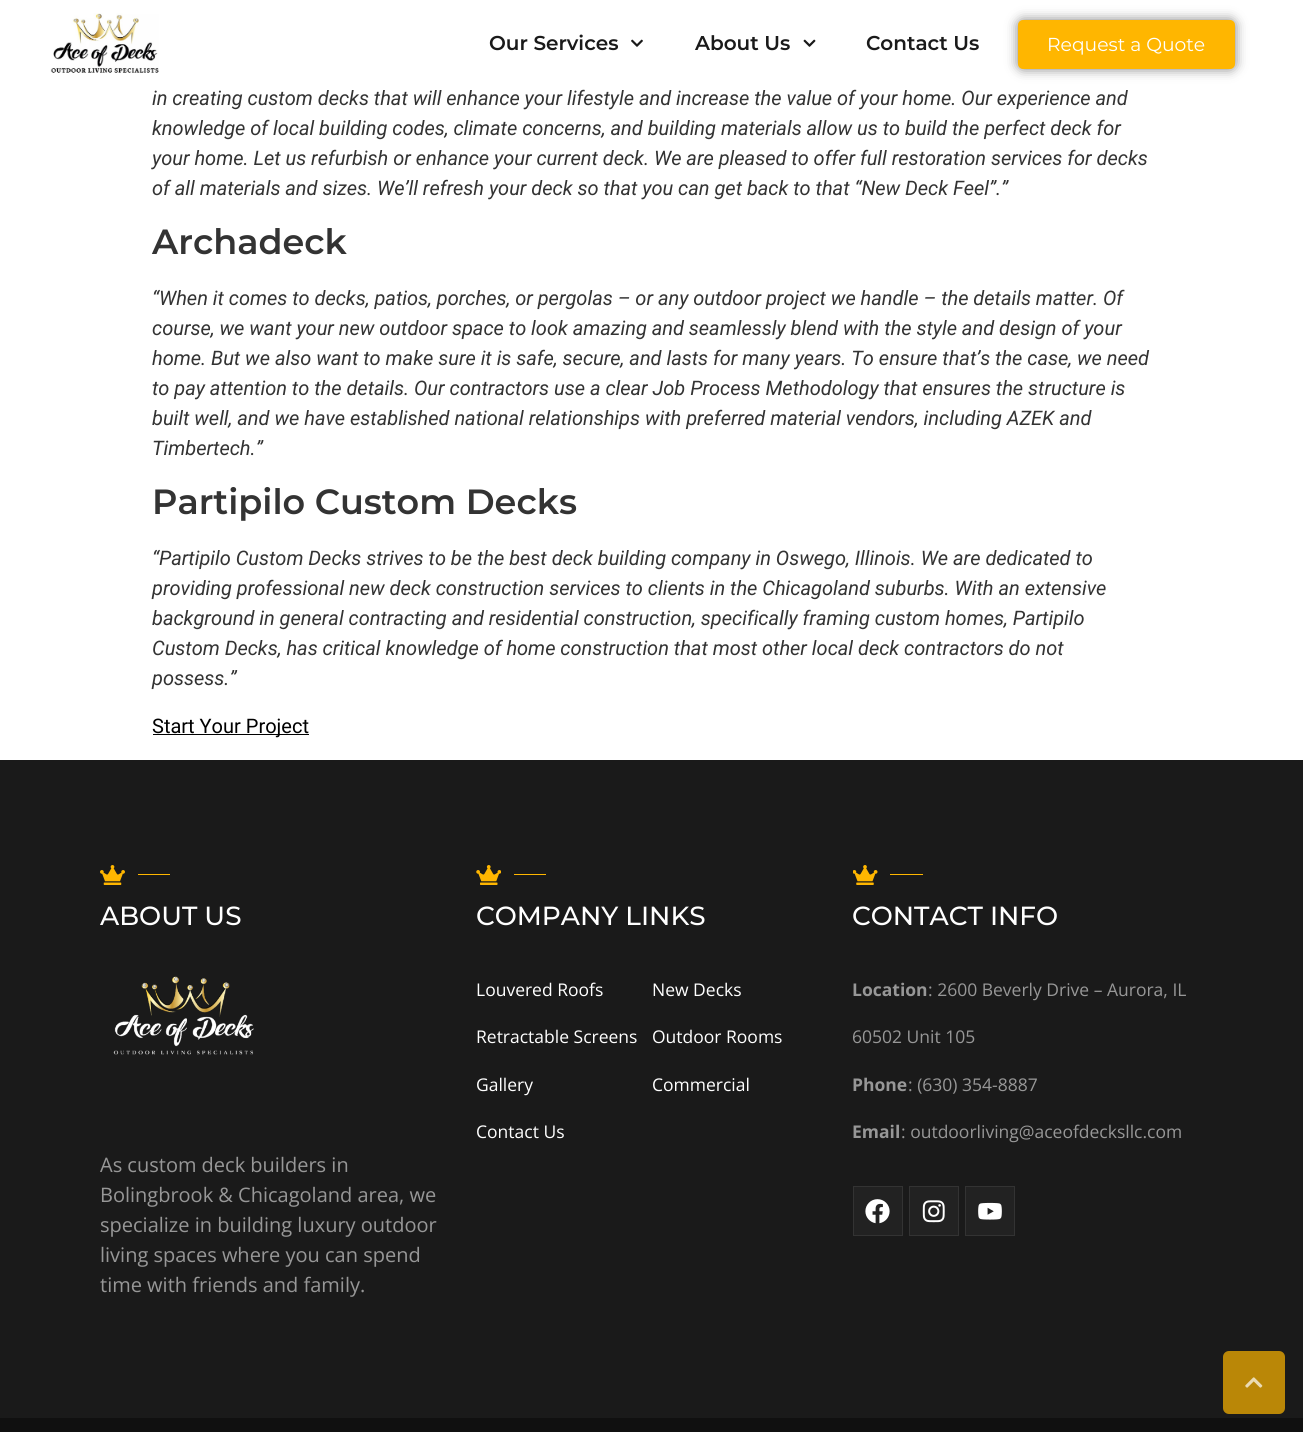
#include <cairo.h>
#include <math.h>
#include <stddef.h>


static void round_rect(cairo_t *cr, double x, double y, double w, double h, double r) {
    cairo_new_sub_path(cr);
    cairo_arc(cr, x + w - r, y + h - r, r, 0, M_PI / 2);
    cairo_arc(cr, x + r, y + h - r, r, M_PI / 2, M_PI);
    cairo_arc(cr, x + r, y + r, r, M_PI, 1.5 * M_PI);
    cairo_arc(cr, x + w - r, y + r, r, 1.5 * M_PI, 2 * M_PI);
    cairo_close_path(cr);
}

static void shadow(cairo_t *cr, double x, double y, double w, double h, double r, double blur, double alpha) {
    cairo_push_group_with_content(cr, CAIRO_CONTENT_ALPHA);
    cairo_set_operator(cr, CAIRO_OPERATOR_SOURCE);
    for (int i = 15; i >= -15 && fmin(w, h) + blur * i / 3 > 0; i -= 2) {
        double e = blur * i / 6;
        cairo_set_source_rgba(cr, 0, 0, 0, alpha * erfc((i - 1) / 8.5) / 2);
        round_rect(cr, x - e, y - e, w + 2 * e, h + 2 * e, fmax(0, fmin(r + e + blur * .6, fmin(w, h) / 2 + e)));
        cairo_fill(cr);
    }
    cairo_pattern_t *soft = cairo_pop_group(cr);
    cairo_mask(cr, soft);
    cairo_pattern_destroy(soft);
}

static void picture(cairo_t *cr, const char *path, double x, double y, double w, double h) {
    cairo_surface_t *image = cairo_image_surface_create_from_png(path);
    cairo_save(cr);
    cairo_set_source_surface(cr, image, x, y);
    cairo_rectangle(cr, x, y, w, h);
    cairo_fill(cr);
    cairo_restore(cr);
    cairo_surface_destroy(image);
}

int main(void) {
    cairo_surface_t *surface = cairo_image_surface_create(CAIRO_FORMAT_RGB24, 1303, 1432);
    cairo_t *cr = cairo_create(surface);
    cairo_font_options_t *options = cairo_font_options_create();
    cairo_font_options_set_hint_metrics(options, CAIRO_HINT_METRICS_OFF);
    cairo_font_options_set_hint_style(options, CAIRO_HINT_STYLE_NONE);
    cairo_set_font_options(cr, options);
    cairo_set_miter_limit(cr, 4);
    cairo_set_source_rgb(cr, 1, 1, 1);
    cairo_paint(cr);
    picture(cr, "img1.png", 50, 13, 109, 60);
    cairo_select_font_face(cr, "Montserrat SemiBold", CAIRO_FONT_SLANT_NORMAL, CAIRO_FONT_WEIGHT_NORMAL);
    cairo_set_font_size(cr, 20);
    cairo_set_source_rgb(cr, 0.102, 0.102, 0.102);
    cairo_move_to(cr, 489, 50);
    cairo_show_text(cr, "Our Services");
    picture(cr, "img2.png", 631, 39, 12, 8);
    cairo_move_to(cr, 695, 50);
    cairo_show_text(cr, "About Us");
    picture(cr, "img3.png", 803, 39, 13, 8);
    cairo_move_to(cr, 866, 50);
    cairo_show_text(cr, "Contact Us");
    cairo_set_source_rgb(cr, 0, 0, 0);
    shadow(cr, 1018, 20, 217, 49, 5, 6, 0.5);
    cairo_set_source_rgb(cr, 1, 0.714, 0);
    round_rect(cr, 1018, 20, 217, 49, 5);
    cairo_fill(cr);
    cairo_select_font_face(cr, "Montserrat", CAIRO_FONT_SLANT_NORMAL, CAIRO_FONT_WEIGHT_NORMAL);
    cairo_set_font_size(cr, 18.75);
    cairo_set_source_rgb(cr, 1, 1, 1);
    cairo_move_to(cr, 1047, 51);
    cairo_show_text(cr, "Request a Quote");
    cairo_select_font_face(cr, "Roboto", CAIRO_FONT_SLANT_ITALIC, CAIRO_FONT_WEIGHT_NORMAL);
    cairo_set_font_size(cr, 20);
    cairo_set_source_rgb(cr, 0.2, 0.2, 0.2);
    cairo_move_to(cr, 152, 105);
    cairo_show_text(cr, "in creating custom decks that will enhance your lifestyle and increase the value of your home. Our experience and");
    cairo_move_to(cr, 152, 135);
    cairo_show_text(cr, "knowledge of local building codes, climate concerns, and building materials allow us to build the perfect deck for");
    cairo_move_to(cr, 152, 165);
    cairo_show_text(cr, "your home. Let us refurbish or enhance your current deck. We are pleased to offer full restoration services for decks");
    cairo_move_to(cr, 152, 195);
    cairo_show_text(cr, "of all materials and sizes. We’ll refresh your deck so that you can get back to that “New Deck Feel”.”");
    cairo_select_font_face(cr, "Montserrat SemiBold", CAIRO_FONT_SLANT_NORMAL, CAIRO_FONT_WEIGHT_NORMAL);
    cairo_set_font_size(cr, 35);
    cairo_move_to(cr, 152, 254);
    cairo_show_text(cr, "Archadeck");
    cairo_select_font_face(cr, "Roboto", CAIRO_FONT_SLANT_ITALIC, CAIRO_FONT_WEIGHT_NORMAL);
    cairo_set_font_size(cr, 20);
    cairo_move_to(cr, 152, 305);
    cairo_show_text(cr, "“When it comes to decks, patios, porches, or pergolas – or any outdoor project we handle – the details matter. Of");
    cairo_move_to(cr, 152, 335);
    cairo_show_text(cr, "course, we want your new outdoor space to look amazing and seamlessly blend with the style and design of your");
    cairo_move_to(cr, 152, 365);
    cairo_show_text(cr, "home. But we also want to make sure it is safe, secure, and lasts for many years. To ensure that’s the case, we need");
    cairo_move_to(cr, 152, 395);
    cairo_show_text(cr, "to pay attention to the details. Our contractors use a clear Job Process Methodology that ensures the structure is");
    cairo_move_to(cr, 152, 425);
    cairo_show_text(cr, "built well, and we have established national relationships with preferred material vendors, including AZEK and");
    cairo_move_to(cr, 152, 455);
    cairo_show_text(cr, "Timbertech.”");
    cairo_select_font_face(cr, "Montserrat SemiBold", CAIRO_FONT_SLANT_NORMAL, CAIRO_FONT_WEIGHT_NORMAL);
    cairo_set_font_size(cr, 35);
    cairo_move_to(cr, 152, 514);
    cairo_show_text(cr, "Partipilo Custom Decks");
    cairo_select_font_face(cr, "Roboto", CAIRO_FONT_SLANT_ITALIC, CAIRO_FONT_WEIGHT_NORMAL);
    cairo_set_font_size(cr, 20);
    cairo_move_to(cr, 152, 565);
    cairo_show_text(cr, "“Partipilo Custom Decks strives to be the best deck building company in Oswego, Illinois. We are dedicated to");
    cairo_move_to(cr, 152, 595);
    cairo_show_text(cr, "providing professional new deck construction services to clients in the Chicagoland suburbs. With an extensive");
    cairo_move_to(cr, 152, 625);
    cairo_show_text(cr, "background in general contracting and residential construction, specifically framing custom homes, Partipilo");
    cairo_move_to(cr, 152, 655);
    cairo_show_text(cr, "Custom Decks, has critical knowledge of home construction that most other local deck contractors do not");
    cairo_move_to(cr, 152, 685);
    cairo_show_text(cr, "possess.”");
    cairo_set_source_rgb(cr, 0, 0, 0);
    cairo_rectangle(cr, 153, 734, 156, 1);
    cairo_fill(cr);
    cairo_select_font_face(cr, "Roboto", CAIRO_FONT_SLANT_NORMAL, CAIRO_FONT_WEIGHT_NORMAL);
    cairo_move_to(cr, 152, 733);
    cairo_show_text(cr, "Start Your Project");
    cairo_set_source_rgb(cr, 0.102, 0.102, 0.102);
    cairo_rectangle(cr, 0, 760, 1303, 658);
    cairo_fill(cr);
    picture(cr, "img4.png", 100, 865, 25, 20);
    cairo_set_source_rgb(cr, 1, 0.714, 0);
    cairo_rectangle(cr, 138, 874, 32, 1);
    cairo_fill(cr);
    cairo_select_font_face(cr, "Montserrat Medium", CAIRO_FONT_SLANT_NORMAL, CAIRO_FONT_WEIGHT_NORMAL);
    cairo_set_font_size(cr, 26.25);
    cairo_set_source_rgb(cr, 1, 1, 1);
    cairo_move_to(cr, 100, 925);
    cairo_show_text(cr, "ABOUT US");
    picture(cr, "img5.png", 113, 976, 141, 79);
    cairo_select_font_face(cr, "Open Sans", CAIRO_FONT_SLANT_NORMAL, CAIRO_FONT_WEIGHT_NORMAL);
    cairo_set_font_size(cr, 20);
    cairo_set_source_rgb(cr, 0.592, 0.592, 0.592);
    cairo_move_to(cr, 100, 1172);
    cairo_show_text(cr, "As custom deck builders in");
    cairo_move_to(cr, 100, 1202);
    cairo_show_text(cr, "Bolingbrook & Chicagoland area, we");
    cairo_move_to(cr, 100, 1232);
    cairo_show_text(cr, "specialize in building luxury outdoor");
    cairo_move_to(cr, 100, 1262);
    cairo_show_text(cr, "living spaces where you can spend");
    cairo_move_to(cr, 100, 1292);
    cairo_show_text(cr, "time with friends and family.");
    picture(cr, "img6.png", 476, 865, 25, 20);
    cairo_set_source_rgb(cr, 1, 0.714, 0);
    cairo_rectangle(cr, 514, 874, 32, 1);
    cairo_fill(cr);
    cairo_select_font_face(cr, "Montserrat Medium", CAIRO_FONT_SLANT_NORMAL, CAIRO_FONT_WEIGHT_NORMAL);
    cairo_set_font_size(cr, 26.25);
    cairo_set_source_rgb(cr, 1, 1, 1);
    cairo_move_to(cr, 476, 925);
    cairo_show_text(cr, "COMPANY LINKS");
    cairo_select_font_face(cr, "Open Sans", CAIRO_FONT_SLANT_NORMAL, CAIRO_FONT_WEIGHT_NORMAL);
    cairo_set_font_size(cr, 17.5);
    cairo_move_to(cr, 476, 996);
    cairo_show_text(cr, "Louvered Roofs");
    cairo_move_to(cr, 652, 996);
    cairo_show_text(cr, "New Decks");
    cairo_move_to(cr, 652, 1043);
    cairo_show_text(cr, "Outdoor Rooms");
    cairo_move_to(cr, 476, 1043);
    cairo_show_text(cr, "Retractable Screens");
    cairo_move_to(cr, 476, 1091);
    cairo_show_text(cr, "Gallery");
    cairo_move_to(cr, 652, 1091);
    cairo_show_text(cr, "Commercial");
    cairo_move_to(cr, 476, 1138);
    cairo_show_text(cr, "Contact Us");
    picture(cr, "img7.png", 853, 865, 25, 20);
    cairo_set_source_rgb(cr, 1, 0.714, 0);
    cairo_rectangle(cr, 890, 874, 33, 1);
    cairo_fill(cr);
    cairo_select_font_face(cr, "Montserrat Medium", CAIRO_FONT_SLANT_NORMAL, CAIRO_FONT_WEIGHT_NORMAL);
    cairo_set_font_size(cr, 26.25);
    cairo_set_source_rgb(cr, 1, 1, 1);
    cairo_move_to(cr, 852, 925);
    cairo_show_text(cr, "CONTACT INFO");
    cairo_select_font_face(cr, "Open Sans", CAIRO_FONT_SLANT_NORMAL, CAIRO_FONT_WEIGHT_BOLD);
    cairo_set_font_size(cr, 17.5);
    cairo_set_source_rgb(cr, 0.592, 0.592, 0.592);
    cairo_move_to(cr, 852, 996);
    cairo_show_text(cr, "Location");
    cairo_select_font_face(cr, "Open Sans", CAIRO_FONT_SLANT_NORMAL, CAIRO_FONT_WEIGHT_NORMAL);
    cairo_move_to(cr, 928, 996);
    cairo_show_text(cr, ": 2600 Beverly Drive – Aurora, IL");
    cairo_move_to(cr, 852, 1043);
    cairo_show_text(cr, "60502 Unit 105");
    cairo_select_font_face(cr, "Open Sans", CAIRO_FONT_SLANT_NORMAL, CAIRO_FONT_WEIGHT_BOLD);
    cairo_move_to(cr, 852, 1091);
    cairo_show_text(cr, "Phone");
    cairo_select_font_face(cr, "Open Sans", CAIRO_FONT_SLANT_NORMAL, CAIRO_FONT_WEIGHT_NORMAL);
    cairo_move_to(cr, 908, 1091);
    cairo_show_text(cr, ": (630) 354-8887");
    cairo_select_font_face(cr, "Open Sans", CAIRO_FONT_SLANT_NORMAL, CAIRO_FONT_WEIGHT_BOLD);
    cairo_move_to(cr, 852, 1138);
    cairo_show_text(cr, "Email");
    cairo_select_font_face(cr, "Open Sans", CAIRO_FONT_SLANT_NORMAL, CAIRO_FONT_WEIGHT_NORMAL);
    cairo_move_to(cr, 901, 1138);
    cairo_show_text(cr, ": outdoorliving@aceofdecksllc.com");
    cairo_set_source_rgb(cr, 0.133, 0.133, 0.133);
    cairo_rectangle(cr, 853.5, 1186.5, 49, 49);
    cairo_fill_preserve(cr);
    cairo_set_source_rgb(cr, 0.2, 0.2, 0.2);
    cairo_set_line_width(cr, 1);
    cairo_stroke(cr);
    picture(cr, "img8.png", 865, 1199, 25, 25);
    cairo_set_source_rgb(cr, 0.133, 0.133, 0.133);
    cairo_rectangle(cr, 909.5, 1186.5, 49, 49);
    cairo_fill_preserve(cr);
    cairo_set_source_rgb(cr, 0.2, 0.2, 0.2);
    cairo_stroke(cr);
    picture(cr, "img9.png", 922, 1200, 23, 23);
    cairo_set_source_rgb(cr, 0.133, 0.133, 0.133);
    cairo_rectangle(cr, 965.5, 1186.5, 49, 49);
    cairo_fill_preserve(cr);
    cairo_set_source_rgb(cr, 0.2, 0.2, 0.2);
    cairo_stroke(cr);
    picture(cr, "img10.png", 978, 1202, 24, 18);
    cairo_set_source_rgb(cr, 0.063, 0.063, 0.063);
    cairo_rectangle(cr, 0, 1418, 1303, 14);
    cairo_fill(cr);
    cairo_set_source_rgb(cr, 0.729, 0.529, 0.031);
    round_rect(cr, 1223, 1351, 62, 63, 6);
    cairo_fill(cr);
    picture(cr, "img11.png", 1245, 1377, 18, 11);
    cairo_surface_write_to_png(surface, "page.png");
    cairo_font_options_destroy(options);
    cairo_destroy(cr);
    cairo_surface_destroy(surface);
    return 0;
}
